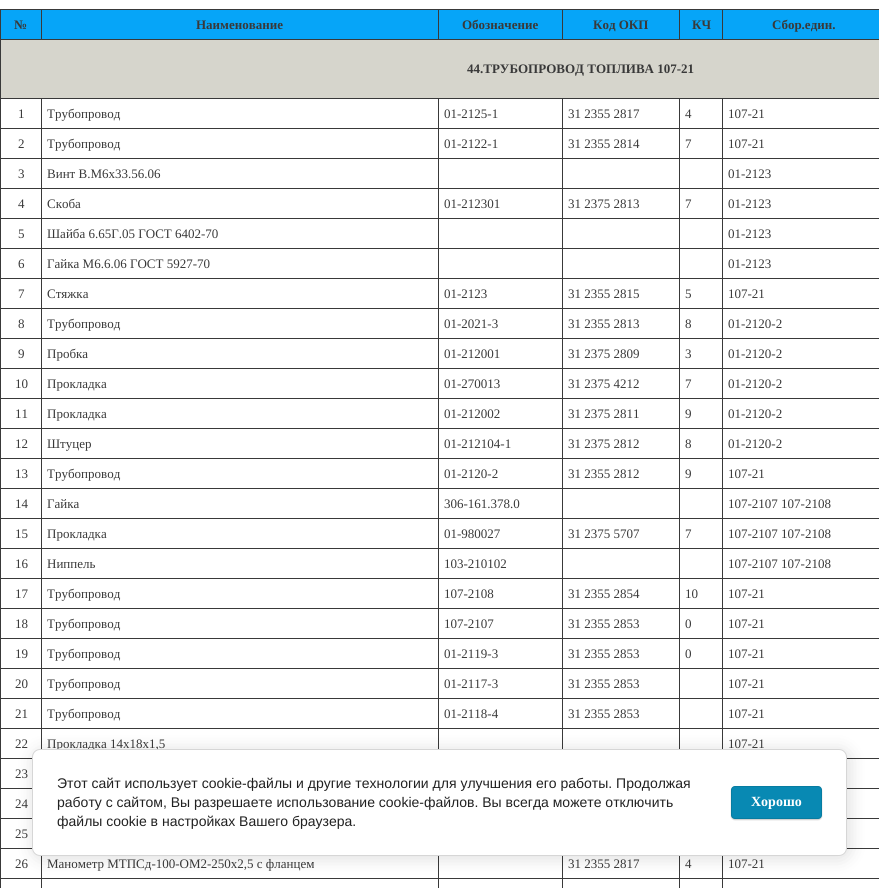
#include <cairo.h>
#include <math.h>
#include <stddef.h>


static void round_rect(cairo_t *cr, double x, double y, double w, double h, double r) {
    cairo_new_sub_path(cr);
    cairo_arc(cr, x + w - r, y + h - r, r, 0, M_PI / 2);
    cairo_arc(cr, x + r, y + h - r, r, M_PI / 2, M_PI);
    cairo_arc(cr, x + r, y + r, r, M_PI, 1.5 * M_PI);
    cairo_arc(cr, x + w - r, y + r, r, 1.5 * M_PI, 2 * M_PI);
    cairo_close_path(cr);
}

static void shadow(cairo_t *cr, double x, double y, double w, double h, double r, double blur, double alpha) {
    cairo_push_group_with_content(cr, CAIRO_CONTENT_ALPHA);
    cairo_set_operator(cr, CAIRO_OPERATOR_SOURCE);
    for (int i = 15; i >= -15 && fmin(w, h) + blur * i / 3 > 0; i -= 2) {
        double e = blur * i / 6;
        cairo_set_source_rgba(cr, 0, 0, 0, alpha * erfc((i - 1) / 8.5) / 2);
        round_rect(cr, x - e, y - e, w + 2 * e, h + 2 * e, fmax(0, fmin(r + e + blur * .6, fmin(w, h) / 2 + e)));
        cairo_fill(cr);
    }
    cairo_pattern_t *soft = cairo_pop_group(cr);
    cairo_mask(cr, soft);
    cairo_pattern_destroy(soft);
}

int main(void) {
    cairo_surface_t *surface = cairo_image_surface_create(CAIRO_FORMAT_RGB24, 879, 888);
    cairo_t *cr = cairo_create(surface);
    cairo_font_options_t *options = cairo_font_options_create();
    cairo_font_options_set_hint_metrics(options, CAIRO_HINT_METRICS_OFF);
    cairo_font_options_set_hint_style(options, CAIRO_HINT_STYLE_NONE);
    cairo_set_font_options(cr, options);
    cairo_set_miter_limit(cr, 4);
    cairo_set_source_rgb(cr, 1, 1, 1);
    cairo_paint(cr);
    cairo_set_source_rgb(cr, 0.027, 0.647, 0.969);
    cairo_rectangle(cr, 1, 10, 878, 29);
    cairo_fill(cr);
    cairo_set_source_rgb(cr, 0.224, 0.224, 0.224);
    cairo_rectangle(cr, 722, 9, 157, 1);
    cairo_fill(cr);
    cairo_rectangle(cr, 0, 39, 879, 1);
    cairo_fill(cr);
    cairo_rectangle(cr, 722, 9, 1, 31);
    cairo_fill(cr);
    cairo_rectangle(cr, 679, 9, 44, 1);
    cairo_fill(cr);
    cairo_rectangle(cr, 679, 9, 1, 31);
    cairo_fill(cr);
    cairo_rectangle(cr, 562, 9, 118, 1);
    cairo_fill(cr);
    cairo_rectangle(cr, 562, 9, 1, 31);
    cairo_fill(cr);
    cairo_rectangle(cr, 438, 9, 125, 1);
    cairo_fill(cr);
    cairo_rectangle(cr, 438, 9, 1, 31);
    cairo_fill(cr);
    cairo_rectangle(cr, 41, 9, 398, 1);
    cairo_fill(cr);
    cairo_rectangle(cr, 41, 9, 1, 31);
    cairo_fill(cr);
    cairo_rectangle(cr, 0, 9, 42, 1);
    cairo_fill(cr);
    cairo_rectangle(cr, 722, 98, 157, 1);
    cairo_fill(cr);
    cairo_rectangle(cr, 722, 128, 157, 1);
    cairo_fill(cr);
    cairo_rectangle(cr, 722, 158, 157, 1);
    cairo_fill(cr);
    cairo_rectangle(cr, 722, 188, 157, 1);
    cairo_fill(cr);
    cairo_rectangle(cr, 722, 218, 157, 1);
    cairo_fill(cr);
    cairo_rectangle(cr, 722, 248, 157, 1);
    cairo_fill(cr);
    cairo_rectangle(cr, 722, 278, 157, 1);
    cairo_fill(cr);
    cairo_rectangle(cr, 722, 308, 157, 1);
    cairo_fill(cr);
    cairo_rectangle(cr, 722, 338, 157, 1);
    cairo_fill(cr);
    cairo_rectangle(cr, 722, 368, 157, 1);
    cairo_fill(cr);
    cairo_rectangle(cr, 722, 398, 157, 1);
    cairo_fill(cr);
    cairo_rectangle(cr, 722, 428, 157, 1);
    cairo_fill(cr);
    cairo_rectangle(cr, 722, 458, 157, 1);
    cairo_fill(cr);
    cairo_rectangle(cr, 722, 488, 157, 1);
    cairo_fill(cr);
    cairo_rectangle(cr, 722, 518, 157, 1);
    cairo_fill(cr);
    cairo_rectangle(cr, 722, 548, 157, 1);
    cairo_fill(cr);
    cairo_rectangle(cr, 722, 578, 157, 1);
    cairo_fill(cr);
    cairo_rectangle(cr, 722, 608, 157, 1);
    cairo_fill(cr);
    cairo_rectangle(cr, 722, 638, 157, 1);
    cairo_fill(cr);
    cairo_rectangle(cr, 722, 668, 157, 1);
    cairo_fill(cr);
    cairo_rectangle(cr, 722, 698, 157, 1);
    cairo_fill(cr);
    cairo_rectangle(cr, 722, 728, 157, 1);
    cairo_fill(cr);
    cairo_rectangle(cr, 722, 728, 1, 21);
    cairo_fill(cr);
    cairo_rectangle(cr, 679, 728, 44, 1);
    cairo_fill(cr);
    cairo_rectangle(cr, 722, 698, 1, 31);
    cairo_fill(cr);
    cairo_rectangle(cr, 679, 698, 44, 1);
    cairo_fill(cr);
    cairo_rectangle(cr, 722, 668, 1, 31);
    cairo_fill(cr);
    cairo_rectangle(cr, 679, 668, 44, 1);
    cairo_fill(cr);
    cairo_rectangle(cr, 722, 638, 1, 31);
    cairo_fill(cr);
    cairo_rectangle(cr, 679, 638, 44, 1);
    cairo_fill(cr);
    cairo_rectangle(cr, 722, 608, 1, 31);
    cairo_fill(cr);
    cairo_rectangle(cr, 679, 608, 44, 1);
    cairo_fill(cr);
    cairo_rectangle(cr, 722, 578, 1, 31);
    cairo_fill(cr);
    cairo_rectangle(cr, 679, 578, 44, 1);
    cairo_fill(cr);
    cairo_rectangle(cr, 722, 548, 1, 31);
    cairo_fill(cr);
    cairo_rectangle(cr, 679, 548, 44, 1);
    cairo_fill(cr);
    cairo_rectangle(cr, 722, 518, 1, 31);
    cairo_fill(cr);
    cairo_rectangle(cr, 679, 518, 44, 1);
    cairo_fill(cr);
    cairo_rectangle(cr, 722, 488, 1, 31);
    cairo_fill(cr);
    cairo_rectangle(cr, 679, 488, 44, 1);
    cairo_fill(cr);
    cairo_rectangle(cr, 722, 458, 1, 31);
    cairo_fill(cr);
    cairo_rectangle(cr, 679, 458, 44, 1);
    cairo_fill(cr);
    cairo_rectangle(cr, 722, 428, 1, 31);
    cairo_fill(cr);
    cairo_rectangle(cr, 679, 428, 44, 1);
    cairo_fill(cr);
    cairo_rectangle(cr, 722, 398, 1, 31);
    cairo_fill(cr);
    cairo_rectangle(cr, 679, 398, 44, 1);
    cairo_fill(cr);
    cairo_rectangle(cr, 722, 368, 1, 31);
    cairo_fill(cr);
    cairo_rectangle(cr, 679, 368, 44, 1);
    cairo_fill(cr);
    cairo_rectangle(cr, 722, 338, 1, 31);
    cairo_fill(cr);
    cairo_rectangle(cr, 679, 338, 44, 1);
    cairo_fill(cr);
    cairo_rectangle(cr, 722, 308, 1, 31);
    cairo_fill(cr);
    cairo_rectangle(cr, 679, 308, 44, 1);
    cairo_fill(cr);
    cairo_rectangle(cr, 722, 278, 1, 31);
    cairo_fill(cr);
    cairo_rectangle(cr, 679, 278, 44, 1);
    cairo_fill(cr);
    cairo_rectangle(cr, 722, 248, 1, 31);
    cairo_fill(cr);
    cairo_rectangle(cr, 679, 248, 44, 1);
    cairo_fill(cr);
    cairo_rectangle(cr, 722, 218, 1, 31);
    cairo_fill(cr);
    cairo_rectangle(cr, 679, 218, 44, 1);
    cairo_fill(cr);
    cairo_rectangle(cr, 722, 188, 1, 31);
    cairo_fill(cr);
    cairo_rectangle(cr, 679, 188, 44, 1);
    cairo_fill(cr);
    cairo_rectangle(cr, 722, 158, 1, 31);
    cairo_fill(cr);
    cairo_rectangle(cr, 679, 158, 44, 1);
    cairo_fill(cr);
    cairo_rectangle(cr, 722, 128, 1, 31);
    cairo_fill(cr);
    cairo_rectangle(cr, 679, 128, 44, 1);
    cairo_fill(cr);
    cairo_rectangle(cr, 722, 98, 1, 31);
    cairo_fill(cr);
    cairo_rectangle(cr, 679, 98, 44, 1);
    cairo_fill(cr);
    cairo_rectangle(cr, 679, 728, 1, 21);
    cairo_fill(cr);
    cairo_rectangle(cr, 562, 728, 118, 1);
    cairo_fill(cr);
    cairo_rectangle(cr, 679, 698, 1, 31);
    cairo_fill(cr);
    cairo_rectangle(cr, 562, 698, 118, 1);
    cairo_fill(cr);
    cairo_rectangle(cr, 679, 668, 1, 31);
    cairo_fill(cr);
    cairo_rectangle(cr, 562, 668, 118, 1);
    cairo_fill(cr);
    cairo_rectangle(cr, 679, 638, 1, 31);
    cairo_fill(cr);
    cairo_rectangle(cr, 562, 638, 118, 1);
    cairo_fill(cr);
    cairo_rectangle(cr, 679, 608, 1, 31);
    cairo_fill(cr);
    cairo_rectangle(cr, 562, 608, 118, 1);
    cairo_fill(cr);
    cairo_rectangle(cr, 679, 578, 1, 31);
    cairo_fill(cr);
    cairo_rectangle(cr, 562, 578, 118, 1);
    cairo_fill(cr);
    cairo_rectangle(cr, 679, 548, 1, 31);
    cairo_fill(cr);
    cairo_rectangle(cr, 562, 548, 118, 1);
    cairo_fill(cr);
    cairo_rectangle(cr, 679, 518, 1, 31);
    cairo_fill(cr);
    cairo_rectangle(cr, 562, 518, 118, 1);
    cairo_fill(cr);
    cairo_rectangle(cr, 679, 488, 1, 31);
    cairo_fill(cr);
    cairo_rectangle(cr, 562, 488, 118, 1);
    cairo_fill(cr);
    cairo_rectangle(cr, 679, 458, 1, 31);
    cairo_fill(cr);
    cairo_rectangle(cr, 562, 458, 118, 1);
    cairo_fill(cr);
    cairo_rectangle(cr, 679, 428, 1, 31);
    cairo_fill(cr);
    cairo_rectangle(cr, 562, 428, 118, 1);
    cairo_fill(cr);
    cairo_rectangle(cr, 679, 398, 1, 31);
    cairo_fill(cr);
    cairo_rectangle(cr, 562, 398, 118, 1);
    cairo_fill(cr);
    cairo_rectangle(cr, 679, 368, 1, 31);
    cairo_fill(cr);
    cairo_rectangle(cr, 562, 368, 118, 1);
    cairo_fill(cr);
    cairo_rectangle(cr, 679, 338, 1, 31);
    cairo_fill(cr);
    cairo_rectangle(cr, 562, 338, 118, 1);
    cairo_fill(cr);
    cairo_rectangle(cr, 679, 308, 1, 31);
    cairo_fill(cr);
    cairo_rectangle(cr, 562, 308, 118, 1);
    cairo_fill(cr);
    cairo_rectangle(cr, 679, 278, 1, 31);
    cairo_fill(cr);
    cairo_rectangle(cr, 562, 278, 118, 1);
    cairo_fill(cr);
    cairo_rectangle(cr, 679, 248, 1, 31);
    cairo_fill(cr);
    cairo_rectangle(cr, 562, 248, 118, 1);
    cairo_fill(cr);
    cairo_rectangle(cr, 679, 218, 1, 31);
    cairo_fill(cr);
    cairo_rectangle(cr, 562, 218, 118, 1);
    cairo_fill(cr);
    cairo_rectangle(cr, 679, 188, 1, 31);
    cairo_fill(cr);
    cairo_rectangle(cr, 562, 188, 118, 1);
    cairo_fill(cr);
    cairo_rectangle(cr, 679, 158, 1, 31);
    cairo_fill(cr);
    cairo_rectangle(cr, 562, 158, 118, 1);
    cairo_fill(cr);
    cairo_rectangle(cr, 679, 128, 1, 31);
    cairo_fill(cr);
    cairo_rectangle(cr, 562, 128, 118, 1);
    cairo_fill(cr);
    cairo_rectangle(cr, 679, 98, 1, 31);
    cairo_fill(cr);
    cairo_rectangle(cr, 562, 98, 118, 1);
    cairo_fill(cr);
    cairo_rectangle(cr, 562, 728, 1, 21);
    cairo_fill(cr);
    cairo_rectangle(cr, 438, 728, 125, 1);
    cairo_fill(cr);
    cairo_rectangle(cr, 562, 698, 1, 31);
    cairo_fill(cr);
    cairo_rectangle(cr, 438, 698, 125, 1);
    cairo_fill(cr);
    cairo_rectangle(cr, 562, 668, 1, 31);
    cairo_fill(cr);
    cairo_rectangle(cr, 438, 668, 125, 1);
    cairo_fill(cr);
    cairo_rectangle(cr, 562, 638, 1, 31);
    cairo_fill(cr);
    cairo_rectangle(cr, 438, 638, 125, 1);
    cairo_fill(cr);
    cairo_rectangle(cr, 562, 608, 1, 31);
    cairo_fill(cr);
    cairo_rectangle(cr, 438, 608, 125, 1);
    cairo_fill(cr);
    cairo_rectangle(cr, 562, 578, 1, 31);
    cairo_fill(cr);
    cairo_rectangle(cr, 438, 578, 125, 1);
    cairo_fill(cr);
    cairo_rectangle(cr, 562, 548, 1, 31);
    cairo_fill(cr);
    cairo_rectangle(cr, 438, 548, 125, 1);
    cairo_fill(cr);
    cairo_rectangle(cr, 562, 518, 1, 31);
    cairo_fill(cr);
    cairo_rectangle(cr, 438, 518, 125, 1);
    cairo_fill(cr);
    cairo_rectangle(cr, 562, 488, 1, 31);
    cairo_fill(cr);
    cairo_rectangle(cr, 438, 488, 125, 1);
    cairo_fill(cr);
    cairo_rectangle(cr, 562, 458, 1, 31);
    cairo_fill(cr);
    cairo_rectangle(cr, 438, 458, 125, 1);
    cairo_fill(cr);
    cairo_rectangle(cr, 562, 428, 1, 31);
    cairo_fill(cr);
    cairo_rectangle(cr, 438, 428, 125, 1);
    cairo_fill(cr);
    cairo_rectangle(cr, 562, 398, 1, 31);
    cairo_fill(cr);
    cairo_rectangle(cr, 438, 398, 125, 1);
    cairo_fill(cr);
    cairo_rectangle(cr, 562, 368, 1, 31);
    cairo_fill(cr);
    cairo_rectangle(cr, 438, 368, 125, 1);
    cairo_fill(cr);
    cairo_rectangle(cr, 562, 338, 1, 31);
    cairo_fill(cr);
    cairo_rectangle(cr, 438, 338, 125, 1);
    cairo_fill(cr);
    cairo_rectangle(cr, 562, 308, 1, 31);
    cairo_fill(cr);
    cairo_rectangle(cr, 438, 308, 125, 1);
    cairo_fill(cr);
    cairo_rectangle(cr, 562, 278, 1, 31);
    cairo_fill(cr);
    cairo_rectangle(cr, 438, 278, 125, 1);
    cairo_fill(cr);
    cairo_rectangle(cr, 562, 248, 1, 31);
    cairo_fill(cr);
    cairo_rectangle(cr, 438, 248, 125, 1);
    cairo_fill(cr);
    cairo_rectangle(cr, 562, 218, 1, 31);
    cairo_fill(cr);
    cairo_rectangle(cr, 438, 218, 125, 1);
    cairo_fill(cr);
    cairo_rectangle(cr, 562, 188, 1, 31);
    cairo_fill(cr);
    cairo_rectangle(cr, 438, 188, 125, 1);
    cairo_fill(cr);
    cairo_rectangle(cr, 562, 158, 1, 31);
    cairo_fill(cr);
    cairo_rectangle(cr, 438, 158, 125, 1);
    cairo_fill(cr);
    cairo_rectangle(cr, 562, 128, 1, 31);
    cairo_fill(cr);
    cairo_rectangle(cr, 438, 128, 125, 1);
    cairo_fill(cr);
    cairo_rectangle(cr, 562, 98, 1, 31);
    cairo_fill(cr);
    cairo_rectangle(cr, 438, 98, 125, 1);
    cairo_fill(cr);
    cairo_rectangle(cr, 438, 728, 1, 21);
    cairo_fill(cr);
    cairo_rectangle(cr, 41, 728, 398, 1);
    cairo_fill(cr);
    cairo_rectangle(cr, 438, 698, 1, 31);
    cairo_fill(cr);
    cairo_rectangle(cr, 41, 698, 398, 1);
    cairo_fill(cr);
    cairo_rectangle(cr, 438, 668, 1, 31);
    cairo_fill(cr);
    cairo_rectangle(cr, 41, 668, 398, 1);
    cairo_fill(cr);
    cairo_rectangle(cr, 438, 638, 1, 31);
    cairo_fill(cr);
    cairo_rectangle(cr, 41, 638, 398, 1);
    cairo_fill(cr);
    cairo_rectangle(cr, 438, 608, 1, 31);
    cairo_fill(cr);
    cairo_rectangle(cr, 41, 608, 398, 1);
    cairo_fill(cr);
    cairo_rectangle(cr, 438, 578, 1, 31);
    cairo_fill(cr);
    cairo_rectangle(cr, 41, 578, 398, 1);
    cairo_fill(cr);
    cairo_rectangle(cr, 438, 548, 1, 31);
    cairo_fill(cr);
    cairo_rectangle(cr, 41, 548, 398, 1);
    cairo_fill(cr);
    cairo_rectangle(cr, 438, 518, 1, 31);
    cairo_fill(cr);
    cairo_rectangle(cr, 41, 518, 398, 1);
    cairo_fill(cr);
    cairo_rectangle(cr, 438, 488, 1, 31);
    cairo_fill(cr);
    cairo_rectangle(cr, 41, 488, 398, 1);
    cairo_fill(cr);
    cairo_rectangle(cr, 438, 458, 1, 31);
    cairo_fill(cr);
    cairo_rectangle(cr, 41, 458, 398, 1);
    cairo_fill(cr);
    cairo_rectangle(cr, 438, 428, 1, 31);
    cairo_fill(cr);
    cairo_rectangle(cr, 41, 428, 398, 1);
    cairo_fill(cr);
    cairo_rectangle(cr, 438, 398, 1, 31);
    cairo_fill(cr);
    cairo_rectangle(cr, 41, 398, 398, 1);
    cairo_fill(cr);
    cairo_rectangle(cr, 438, 368, 1, 31);
    cairo_fill(cr);
    cairo_rectangle(cr, 41, 368, 398, 1);
    cairo_fill(cr);
    cairo_rectangle(cr, 438, 338, 1, 31);
    cairo_fill(cr);
    cairo_rectangle(cr, 41, 338, 398, 1);
    cairo_fill(cr);
    cairo_rectangle(cr, 438, 308, 1, 31);
    cairo_fill(cr);
    cairo_rectangle(cr, 41, 308, 398, 1);
    cairo_fill(cr);
    cairo_rectangle(cr, 438, 278, 1, 31);
    cairo_fill(cr);
    cairo_rectangle(cr, 41, 278, 398, 1);
    cairo_fill(cr);
    cairo_rectangle(cr, 438, 248, 1, 31);
    cairo_fill(cr);
    cairo_rectangle(cr, 41, 248, 398, 1);
    cairo_fill(cr);
    cairo_rectangle(cr, 438, 218, 1, 31);
    cairo_fill(cr);
    cairo_rectangle(cr, 41, 218, 398, 1);
    cairo_fill(cr);
    cairo_rectangle(cr, 438, 188, 1, 31);
    cairo_fill(cr);
    cairo_rectangle(cr, 41, 188, 398, 1);
    cairo_fill(cr);
    cairo_rectangle(cr, 438, 158, 1, 31);
    cairo_fill(cr);
    cairo_rectangle(cr, 41, 158, 398, 1);
    cairo_fill(cr);
    cairo_rectangle(cr, 438, 128, 1, 31);
    cairo_fill(cr);
    cairo_rectangle(cr, 41, 128, 398, 1);
    cairo_fill(cr);
    cairo_rectangle(cr, 438, 98, 1, 31);
    cairo_fill(cr);
    cairo_rectangle(cr, 41, 98, 398, 1);
    cairo_fill(cr);
    cairo_rectangle(cr, 41, 728, 1, 21);
    cairo_fill(cr);
    cairo_rectangle(cr, 0, 728, 42, 1);
    cairo_fill(cr);
    cairo_rectangle(cr, 41, 698, 1, 31);
    cairo_fill(cr);
    cairo_rectangle(cr, 0, 698, 42, 1);
    cairo_fill(cr);
    cairo_rectangle(cr, 41, 668, 1, 31);
    cairo_fill(cr);
    cairo_rectangle(cr, 0, 668, 42, 1);
    cairo_fill(cr);
    cairo_rectangle(cr, 41, 638, 1, 31);
    cairo_fill(cr);
    cairo_rectangle(cr, 0, 638, 42, 1);
    cairo_fill(cr);
    cairo_rectangle(cr, 41, 608, 1, 31);
    cairo_fill(cr);
    cairo_rectangle(cr, 0, 608, 42, 1);
    cairo_fill(cr);
    cairo_rectangle(cr, 41, 578, 1, 31);
    cairo_fill(cr);
    cairo_rectangle(cr, 0, 578, 42, 1);
    cairo_fill(cr);
    cairo_rectangle(cr, 41, 548, 1, 31);
    cairo_fill(cr);
    cairo_rectangle(cr, 0, 548, 42, 1);
    cairo_fill(cr);
    cairo_rectangle(cr, 41, 518, 1, 31);
    cairo_fill(cr);
    cairo_rectangle(cr, 0, 518, 42, 1);
    cairo_fill(cr);
    cairo_rectangle(cr, 41, 488, 1, 31);
    cairo_fill(cr);
    cairo_rectangle(cr, 0, 488, 42, 1);
    cairo_fill(cr);
    cairo_rectangle(cr, 41, 458, 1, 31);
    cairo_fill(cr);
    cairo_rectangle(cr, 0, 458, 42, 1);
    cairo_fill(cr);
    cairo_rectangle(cr, 41, 428, 1, 31);
    cairo_fill(cr);
    cairo_rectangle(cr, 0, 428, 42, 1);
    cairo_fill(cr);
    cairo_rectangle(cr, 41, 398, 1, 31);
    cairo_fill(cr);
    cairo_rectangle(cr, 0, 398, 42, 1);
    cairo_fill(cr);
    cairo_rectangle(cr, 41, 368, 1, 31);
    cairo_fill(cr);
    cairo_rectangle(cr, 0, 368, 42, 1);
    cairo_fill(cr);
    cairo_rectangle(cr, 41, 338, 1, 31);
    cairo_fill(cr);
    cairo_rectangle(cr, 0, 338, 42, 1);
    cairo_fill(cr);
    cairo_rectangle(cr, 41, 308, 1, 31);
    cairo_fill(cr);
    cairo_rectangle(cr, 0, 308, 42, 1);
    cairo_fill(cr);
    cairo_rectangle(cr, 41, 278, 1, 31);
    cairo_fill(cr);
    cairo_rectangle(cr, 0, 278, 42, 1);
    cairo_fill(cr);
    cairo_rectangle(cr, 41, 248, 1, 31);
    cairo_fill(cr);
    cairo_rectangle(cr, 0, 248, 42, 1);
    cairo_fill(cr);
    cairo_rectangle(cr, 41, 218, 1, 31);
    cairo_fill(cr);
    cairo_rectangle(cr, 0, 218, 42, 1);
    cairo_fill(cr);
    cairo_rectangle(cr, 41, 188, 1, 31);
    cairo_fill(cr);
    cairo_rectangle(cr, 0, 188, 42, 1);
    cairo_fill(cr);
    cairo_rectangle(cr, 41, 158, 1, 31);
    cairo_fill(cr);
    cairo_rectangle(cr, 0, 158, 42, 1);
    cairo_fill(cr);
    cairo_rectangle(cr, 41, 128, 1, 31);
    cairo_fill(cr);
    cairo_rectangle(cr, 0, 128, 42, 1);
    cairo_fill(cr);
    cairo_rectangle(cr, 41, 98, 1, 31);
    cairo_fill(cr);
    cairo_rectangle(cr, 0, 98, 42, 1);
    cairo_fill(cr);
    cairo_rectangle(cr, 0, 758, 32, 1);
    cairo_fill(cr);
    cairo_rectangle(cr, 0, 788, 32, 1);
    cairo_fill(cr);
    cairo_rectangle(cr, 0, 818, 32, 1);
    cairo_fill(cr);
    cairo_rectangle(cr, 0, 848, 33, 1);
    cairo_fill(cr);
    cairo_rectangle(cr, 722, 878, 157, 1);
    cairo_fill(cr);
    cairo_rectangle(cr, 722, 878, 1, 10);
    cairo_fill(cr);
    cairo_rectangle(cr, 679, 878, 44, 1);
    cairo_fill(cr);
    cairo_rectangle(cr, 679, 878, 1, 10);
    cairo_fill(cr);
    cairo_rectangle(cr, 562, 878, 118, 1);
    cairo_fill(cr);
    cairo_rectangle(cr, 562, 878, 1, 10);
    cairo_fill(cr);
    cairo_rectangle(cr, 438, 878, 125, 1);
    cairo_fill(cr);
    cairo_rectangle(cr, 438, 878, 1, 10);
    cairo_fill(cr);
    cairo_rectangle(cr, 41, 878, 398, 1);
    cairo_fill(cr);
    cairo_rectangle(cr, 41, 878, 1, 10);
    cairo_fill(cr);
    cairo_rectangle(cr, 0, 878, 42, 1);
    cairo_fill(cr);
    cairo_rectangle(cr, 0, 878, 1, 10);
    cairo_fill(cr);
    cairo_rectangle(cr, 0, 848, 1, 31);
    cairo_fill(cr);
    cairo_rectangle(cr, 0, 818, 1, 31);
    cairo_fill(cr);
    cairo_rectangle(cr, 0, 788, 1, 31);
    cairo_fill(cr);
    cairo_rectangle(cr, 0, 758, 1, 31);
    cairo_fill(cr);
    cairo_rectangle(cr, 0, 728, 1, 31);
    cairo_fill(cr);
    cairo_rectangle(cr, 0, 698, 1, 31);
    cairo_fill(cr);
    cairo_rectangle(cr, 0, 668, 1, 31);
    cairo_fill(cr);
    cairo_rectangle(cr, 0, 638, 1, 31);
    cairo_fill(cr);
    cairo_rectangle(cr, 0, 608, 1, 31);
    cairo_fill(cr);
    cairo_rectangle(cr, 0, 578, 1, 31);
    cairo_fill(cr);
    cairo_rectangle(cr, 0, 548, 1, 31);
    cairo_fill(cr);
    cairo_rectangle(cr, 0, 518, 1, 31);
    cairo_fill(cr);
    cairo_rectangle(cr, 0, 488, 1, 31);
    cairo_fill(cr);
    cairo_rectangle(cr, 0, 458, 1, 31);
    cairo_fill(cr);
    cairo_rectangle(cr, 0, 428, 1, 31);
    cairo_fill(cr);
    cairo_rectangle(cr, 0, 398, 1, 31);
    cairo_fill(cr);
    cairo_rectangle(cr, 0, 368, 1, 31);
    cairo_fill(cr);
    cairo_rectangle(cr, 0, 338, 1, 31);
    cairo_fill(cr);
    cairo_rectangle(cr, 0, 308, 1, 31);
    cairo_fill(cr);
    cairo_rectangle(cr, 0, 278, 1, 31);
    cairo_fill(cr);
    cairo_rectangle(cr, 0, 248, 1, 31);
    cairo_fill(cr);
    cairo_rectangle(cr, 0, 218, 1, 31);
    cairo_fill(cr);
    cairo_rectangle(cr, 0, 188, 1, 31);
    cairo_fill(cr);
    cairo_rectangle(cr, 0, 158, 1, 31);
    cairo_fill(cr);
    cairo_rectangle(cr, 0, 128, 1, 31);
    cairo_fill(cr);
    cairo_rectangle(cr, 0, 98, 1, 31);
    cairo_fill(cr);
    cairo_rectangle(cr, 0, 39, 1, 60);
    cairo_fill(cr);
    cairo_rectangle(cr, 0, 9, 1, 31);
    cairo_fill(cr);
    cairo_select_font_face(cr, "Liberation Serif", CAIRO_FONT_SLANT_NORMAL, CAIRO_FONT_WEIGHT_BOLD);
    cairo_set_font_size(cr, 13);
    cairo_move_to(cr, 14, 29);
    cairo_show_text(cr, "№");
    cairo_move_to(cr, 196, 29);
    cairo_show_text(cr, "Наименование");
    cairo_move_to(cr, 462, 29);
    cairo_show_text(cr, "Обозначение");
    cairo_move_to(cr, 593, 29);
    cairo_show_text(cr, "Код ОКП");
    cairo_move_to(cr, 692, 29);
    cairo_show_text(cr, "КЧ");
    cairo_move_to(cr, 772, 29);
    cairo_show_text(cr, "Сбор.един.");
    cairo_set_source_rgb(cr, 0.839, 0.835, 0.8);
    cairo_rectangle(cr, 1, 40, 878, 58);
    cairo_fill(cr);
    cairo_set_source_rgb(cr, 0.224, 0.224, 0.224);
    cairo_move_to(cr, 467, 73);
    cairo_show_text(cr, "44.ТРУБОПРОВОД ТОПЛИВА 107-21");
    cairo_select_font_face(cr, "Liberation Serif", CAIRO_FONT_SLANT_NORMAL, CAIRO_FONT_WEIGHT_NORMAL);
    cairo_move_to(cr, 18, 118);
    cairo_show_text(cr, "1");
    cairo_move_to(cr, 47, 118);
    cairo_show_text(cr, "Трубопровод");
    cairo_move_to(cr, 444, 118);
    cairo_show_text(cr, "01-2125-1");
    cairo_move_to(cr, 568, 118);
    cairo_show_text(cr, "31 2355 2817");
    cairo_move_to(cr, 685, 118);
    cairo_show_text(cr, "4");
    cairo_move_to(cr, 728, 118);
    cairo_show_text(cr, "107-21");
    cairo_move_to(cr, 18, 148);
    cairo_show_text(cr, "2");
    cairo_move_to(cr, 47, 148);
    cairo_show_text(cr, "Трубопровод");
    cairo_move_to(cr, 444, 148);
    cairo_show_text(cr, "01-2122-1");
    cairo_move_to(cr, 568, 148);
    cairo_show_text(cr, "31 2355 2814");
    cairo_move_to(cr, 685, 148);
    cairo_show_text(cr, "7");
    cairo_move_to(cr, 728, 148);
    cairo_show_text(cr, "107-21");
    cairo_move_to(cr, 18, 178);
    cairo_show_text(cr, "3");
    cairo_move_to(cr, 47, 178);
    cairo_show_text(cr, "Винт В.М6х33.56.06");
    cairo_move_to(cr, 728, 178);
    cairo_show_text(cr, "01-2123");
    cairo_move_to(cr, 18, 208);
    cairo_show_text(cr, "4");
    cairo_move_to(cr, 47, 208);
    cairo_show_text(cr, "Скоба");
    cairo_move_to(cr, 444, 208);
    cairo_show_text(cr, "01-212301");
    cairo_move_to(cr, 568, 208);
    cairo_show_text(cr, "31 2375 2813");
    cairo_move_to(cr, 685, 208);
    cairo_show_text(cr, "7");
    cairo_move_to(cr, 728, 208);
    cairo_show_text(cr, "01-2123");
    cairo_move_to(cr, 18, 238);
    cairo_show_text(cr, "5");
    cairo_move_to(cr, 47, 238);
    cairo_show_text(cr, "Шайба 6.65Г.05 ГОСТ 6402-70");
    cairo_move_to(cr, 728, 238);
    cairo_show_text(cr, "01-2123");
    cairo_move_to(cr, 18, 268);
    cairo_show_text(cr, "6");
    cairo_move_to(cr, 47, 268);
    cairo_show_text(cr, "Гайка М6.6.06 ГОСТ 5927-70");
    cairo_move_to(cr, 728, 268);
    cairo_show_text(cr, "01-2123");
    cairo_move_to(cr, 18, 298);
    cairo_show_text(cr, "7");
    cairo_move_to(cr, 47, 298);
    cairo_show_text(cr, "Стяжка");
    cairo_move_to(cr, 444, 298);
    cairo_show_text(cr, "01-2123");
    cairo_move_to(cr, 568, 298);
    cairo_show_text(cr, "31 2355 2815");
    cairo_move_to(cr, 685, 298);
    cairo_show_text(cr, "5");
    cairo_move_to(cr, 728, 298);
    cairo_show_text(cr, "107-21");
    cairo_move_to(cr, 18, 328);
    cairo_show_text(cr, "8");
    cairo_move_to(cr, 47, 328);
    cairo_show_text(cr, "Трубопровод");
    cairo_move_to(cr, 444, 328);
    cairo_show_text(cr, "01-2021-3");
    cairo_move_to(cr, 568, 328);
    cairo_show_text(cr, "31 2355 2813");
    cairo_move_to(cr, 685, 328);
    cairo_show_text(cr, "8");
    cairo_move_to(cr, 728, 328);
    cairo_show_text(cr, "01-2120-2");
    cairo_move_to(cr, 18, 358);
    cairo_show_text(cr, "9");
    cairo_move_to(cr, 47, 358);
    cairo_show_text(cr, "Пробка");
    cairo_move_to(cr, 444, 358);
    cairo_show_text(cr, "01-212001");
    cairo_move_to(cr, 568, 358);
    cairo_show_text(cr, "31 2375 2809");
    cairo_move_to(cr, 685, 358);
    cairo_show_text(cr, "3");
    cairo_move_to(cr, 728, 358);
    cairo_show_text(cr, "01-2120-2");
    cairo_move_to(cr, 15, 388);
    cairo_show_text(cr, "10");
    cairo_move_to(cr, 47, 388);
    cairo_show_text(cr, "Прокладка");
    cairo_move_to(cr, 444, 388);
    cairo_show_text(cr, "01-270013");
    cairo_move_to(cr, 568, 388);
    cairo_show_text(cr, "31 2375 4212");
    cairo_move_to(cr, 685, 388);
    cairo_show_text(cr, "7");
    cairo_move_to(cr, 728, 388);
    cairo_show_text(cr, "01-2120-2");
    cairo_move_to(cr, 15, 418);
    cairo_show_text(cr, "11");
    cairo_move_to(cr, 47, 418);
    cairo_show_text(cr, "Прокладка");
    cairo_move_to(cr, 444, 418);
    cairo_show_text(cr, "01-212002");
    cairo_move_to(cr, 568, 418);
    cairo_show_text(cr, "31 2375 2811");
    cairo_move_to(cr, 685, 418);
    cairo_show_text(cr, "9");
    cairo_move_to(cr, 728, 418);
    cairo_show_text(cr, "01-2120-2");
    cairo_move_to(cr, 15, 448);
    cairo_show_text(cr, "12");
    cairo_move_to(cr, 47, 448);
    cairo_show_text(cr, "Штуцер");
    cairo_move_to(cr, 444, 448);
    cairo_show_text(cr, "01-212104-1");
    cairo_move_to(cr, 568, 448);
    cairo_show_text(cr, "31 2375 2812");
    cairo_move_to(cr, 685, 448);
    cairo_show_text(cr, "8");
    cairo_move_to(cr, 728, 448);
    cairo_show_text(cr, "01-2120-2");
    cairo_move_to(cr, 15, 478);
    cairo_show_text(cr, "13");
    cairo_move_to(cr, 47, 478);
    cairo_show_text(cr, "Трубопровод");
    cairo_move_to(cr, 444, 478);
    cairo_show_text(cr, "01-2120-2");
    cairo_move_to(cr, 568, 478);
    cairo_show_text(cr, "31 2355 2812");
    cairo_move_to(cr, 685, 478);
    cairo_show_text(cr, "9");
    cairo_move_to(cr, 728, 478);
    cairo_show_text(cr, "107-21");
    cairo_move_to(cr, 15, 508);
    cairo_show_text(cr, "14");
    cairo_move_to(cr, 47, 508);
    cairo_show_text(cr, "Гайка");
    cairo_move_to(cr, 444, 508);
    cairo_show_text(cr, "306-161.378.0");
    cairo_move_to(cr, 728, 508);
    cairo_show_text(cr, "107-2107 107-2108");
    cairo_move_to(cr, 15, 538);
    cairo_show_text(cr, "15");
    cairo_move_to(cr, 47, 538);
    cairo_show_text(cr, "Прокладка");
    cairo_move_to(cr, 444, 538);
    cairo_show_text(cr, "01-980027");
    cairo_move_to(cr, 568, 538);
    cairo_show_text(cr, "31 2375 5707");
    cairo_move_to(cr, 685, 538);
    cairo_show_text(cr, "7");
    cairo_move_to(cr, 728, 538);
    cairo_show_text(cr, "107-2107 107-2108");
    cairo_move_to(cr, 15, 568);
    cairo_show_text(cr, "16");
    cairo_move_to(cr, 47, 568);
    cairo_show_text(cr, "Ниппель");
    cairo_move_to(cr, 444, 568);
    cairo_show_text(cr, "103-210102");
    cairo_move_to(cr, 728, 568);
    cairo_show_text(cr, "107-2107 107-2108");
    cairo_move_to(cr, 15, 598);
    cairo_show_text(cr, "17");
    cairo_move_to(cr, 47, 598);
    cairo_show_text(cr, "Трубопровод");
    cairo_move_to(cr, 444, 598);
    cairo_show_text(cr, "107-2108");
    cairo_move_to(cr, 568, 598);
    cairo_show_text(cr, "31 2355 2854");
    cairo_move_to(cr, 685, 598);
    cairo_show_text(cr, "10");
    cairo_move_to(cr, 728, 598);
    cairo_show_text(cr, "107-21");
    cairo_move_to(cr, 15, 628);
    cairo_show_text(cr, "18");
    cairo_move_to(cr, 47, 628);
    cairo_show_text(cr, "Трубопровод");
    cairo_move_to(cr, 444, 628);
    cairo_show_text(cr, "107-2107");
    cairo_move_to(cr, 568, 628);
    cairo_show_text(cr, "31 2355 2853");
    cairo_move_to(cr, 685, 628);
    cairo_show_text(cr, "0");
    cairo_move_to(cr, 728, 628);
    cairo_show_text(cr, "107-21");
    cairo_move_to(cr, 15, 658);
    cairo_show_text(cr, "19");
    cairo_move_to(cr, 47, 658);
    cairo_show_text(cr, "Трубопровод");
    cairo_move_to(cr, 444, 658);
    cairo_show_text(cr, "01-2119-3");
    cairo_move_to(cr, 568, 658);
    cairo_show_text(cr, "31 2355 2853");
    cairo_move_to(cr, 685, 658);
    cairo_show_text(cr, "0");
    cairo_move_to(cr, 728, 658);
    cairo_show_text(cr, "107-21");
    cairo_move_to(cr, 15, 688);
    cairo_show_text(cr, "20");
    cairo_move_to(cr, 47, 688);
    cairo_show_text(cr, "Трубопровод");
    cairo_move_to(cr, 444, 688);
    cairo_show_text(cr, "01-2117-3");
    cairo_move_to(cr, 568, 688);
    cairo_show_text(cr, "31 2355 2853");
    cairo_move_to(cr, 728, 688);
    cairo_show_text(cr, "107-21");
    cairo_move_to(cr, 15, 718);
    cairo_show_text(cr, "21");
    cairo_move_to(cr, 47, 718);
    cairo_show_text(cr, "Трубопровод");
    cairo_move_to(cr, 444, 718);
    cairo_show_text(cr, "01-2118-4");
    cairo_move_to(cr, 568, 718);
    cairo_show_text(cr, "31 2355 2853");
    cairo_move_to(cr, 728, 718);
    cairo_show_text(cr, "107-21");
    cairo_move_to(cr, 15, 748);
    cairo_show_text(cr, "22");
    cairo_move_to(cr, 47, 748);
    cairo_show_text(cr, "Прокладка 14x18x1,5");
    cairo_move_to(cr, 728, 748);
    cairo_show_text(cr, "107-21");
    cairo_rectangle(cr, 847, 758, 32, 1);
    cairo_fill(cr);
    cairo_move_to(cr, 15, 778);
    cairo_show_text(cr, "23");
    cairo_rectangle(cr, 847, 788, 32, 1);
    cairo_fill(cr);
    cairo_move_to(cr, 15, 808);
    cairo_show_text(cr, "24");
    cairo_rectangle(cr, 847, 818, 32, 1);
    cairo_fill(cr);
    cairo_move_to(cr, 15, 838);
    cairo_show_text(cr, "25");
    cairo_move_to(cr, 15, 868);
    cairo_show_text(cr, "26");
    cairo_rectangle(cr, 41, 848, 1, 31);
    cairo_fill(cr);
    cairo_move_to(cr, 47, 868);
    cairo_show_text(cr, "Манометр МТПСд-100-ОМ2-250х2,5 с фланцем");
    cairo_rectangle(cr, 438, 848, 1, 31);
    cairo_fill(cr);
    cairo_rectangle(cr, 562, 848, 1, 31);
    cairo_fill(cr);
    cairo_move_to(cr, 568, 868);
    cairo_show_text(cr, "31 2355 2817");
    cairo_rectangle(cr, 679, 848, 1, 31);
    cairo_fill(cr);
    cairo_move_to(cr, 685, 868);
    cairo_show_text(cr, "4");
    cairo_rectangle(cr, 846, 848, 33, 1);
    cairo_fill(cr);
    cairo_rectangle(cr, 722, 848, 1, 31);
    cairo_fill(cr);
    cairo_move_to(cr, 728, 868);
    cairo_show_text(cr, "107-21");
    cairo_set_source_rgb(cr, 0, 0, 0);
    shadow(cr, 34, 751, 815, 107, 8, 9, 0.14);
    cairo_set_source_rgb(cr, 1, 1, 1);
    round_rect(cr, 32.5, 749.5, 814, 106, 7.5);
    cairo_fill_preserve(cr);
    cairo_set_source_rgb(cr, 0.839, 0.839, 0.839);
    cairo_set_line_width(cr, 1);
    cairo_stroke(cr);
    cairo_select_font_face(cr, "Liberation Sans", CAIRO_FONT_SLANT_NORMAL, CAIRO_FONT_WEIGHT_NORMAL);
    cairo_set_font_size(cr, 14);
    cairo_set_source_rgb(cr, 0.129, 0.129, 0.129);
    cairo_move_to(cr, 57, 788);
    cairo_show_text(cr, "Этот сайт использует cookie-файлы и другие технологии для улучшения его работы. Продолжая");
    cairo_move_to(cr, 57, 807);
    cairo_show_text(cr, "работу с сайтом, Вы разрешаете использование cookie-файлов. Вы всегда можете отключить");
    cairo_move_to(cr, 57, 826);
    cairo_show_text(cr, "файлы cookie в настройках Вашего браузера.");
    cairo_set_source_rgb(cr, 0, 0, 0);
    shadow(cr, 731, 787, 91, 33, 4, 0.5, 0.2);
    cairo_set_source_rgb(cr, 0.035, 0.537, 0.702);
    round_rect(cr, 731, 786, 91, 33, 4);
    cairo_fill(cr);
    round_rect(cr, 731.5, 786.5, 90, 32, 3.5);
    cairo_set_source_rgba(cr, 0, 0, 0, 0.1);
    cairo_stroke(cr);
    cairo_select_font_face(cr, "Liberation Serif", CAIRO_FONT_SLANT_NORMAL, CAIRO_FONT_WEIGHT_BOLD);
    cairo_set_source_rgb(cr, 1, 1, 1);
    cairo_move_to(cr, 751, 806);
    cairo_show_text(cr, "Хорошо");
    cairo_surface_write_to_png(surface, "page.png");
    cairo_font_options_destroy(options);
    cairo_destroy(cr);
    cairo_surface_destroy(surface);
    return 0;
}
